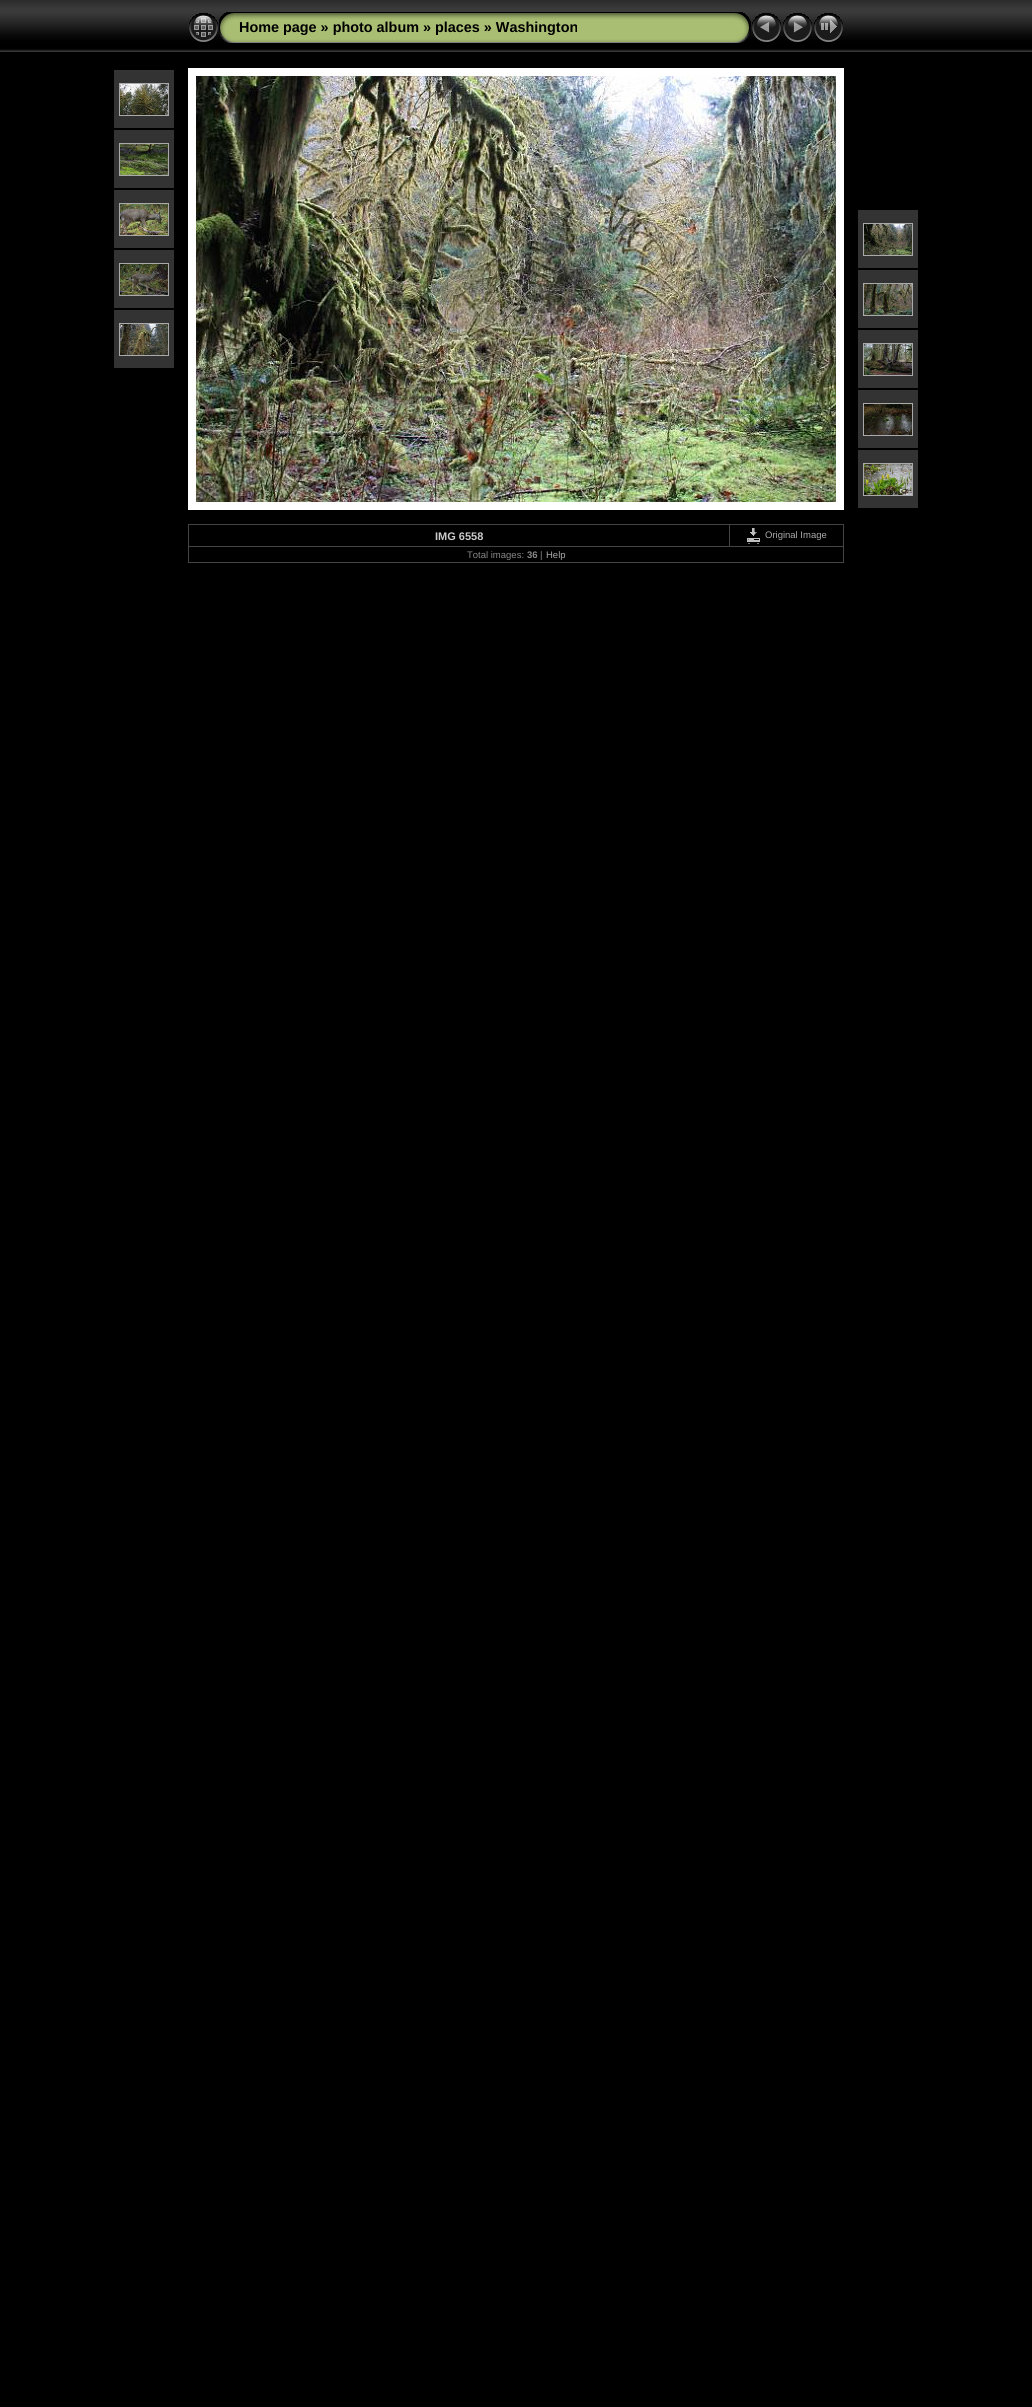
#include <cairo.h>
#include <math.h>
#include <stddef.h>


static void picture(cairo_t *cr, const char *path, double x, double y, double w, double h) {
    cairo_surface_t *image = cairo_image_surface_create_from_png(path);
    cairo_save(cr);
    cairo_set_source_surface(cr, image, x, y);
    cairo_rectangle(cr, x, y, w, h);
    cairo_fill(cr);
    cairo_restore(cr);
    cairo_surface_destroy(image);
}

int main(void) {
    cairo_surface_t *surface = cairo_image_surface_create(CAIRO_FORMAT_RGB24, 1032, 2407);
    cairo_t *cr = cairo_create(surface);
    cairo_font_options_t *options = cairo_font_options_create();
    cairo_font_options_set_hint_metrics(options, CAIRO_HINT_METRICS_OFF);
    cairo_font_options_set_hint_style(options, CAIRO_HINT_STYLE_NONE);
    cairo_set_font_options(cr, options);
    cairo_set_miter_limit(cr, 4);
    cairo_set_source_rgb(cr, 0, 0, 0);
    cairo_paint(cr);
    picture(cr, "img1.png", 0, 0, 1032, 52);
    picture(cr, "img2.png", 189, 13, 29, 29);
    picture(cr, "img3.png", 219, 12, 20, 31);
    picture(cr, "img4.png", 239, 12, 492, 31);
    cairo_select_font_face(cr, "Liberation Sans", CAIRO_FONT_SLANT_NORMAL, CAIRO_FONT_WEIGHT_BOLD);
    cairo_set_font_size(cr, 14.4);
    cairo_set_source_rgb(cr, 0, 0, 0);
    cairo_move_to(cr, 239, 32);
    cairo_show_text(cr, "Home page » photo album » places » Washington");
    picture(cr, "img5.png", 731, 12, 20, 31);
    picture(cr, "img6.png", 752, 13, 29, 29);
    picture(cr, "img7.png", 783, 13, 29, 29);
    picture(cr, "img8.png", 814, 13, 29, 29);
    cairo_set_source_rgb(cr, 0.2, 0.2, 0.2);
    cairo_rectangle(cr, 114, 70, 60, 58);
    cairo_fill(cr);
    cairo_rectangle(cr, 119.5, 83.5, 49, 32);
    cairo_set_source_rgb(cr, 0.667, 0.667, 0.667);
    cairo_set_line_width(cr, 1);
    cairo_stroke(cr);
    picture(cr, "img9.png", 120, 84, 48, 31);
    cairo_set_source_rgb(cr, 0.2, 0.2, 0.2);
    cairo_rectangle(cr, 114, 130, 60, 58);
    cairo_fill(cr);
    cairo_rectangle(cr, 119.5, 143.5, 49, 32);
    cairo_set_source_rgb(cr, 0.667, 0.667, 0.667);
    cairo_stroke(cr);
    picture(cr, "img10.png", 120, 144, 48, 31);
    cairo_set_source_rgb(cr, 0.2, 0.2, 0.2);
    cairo_rectangle(cr, 114, 190, 60, 58);
    cairo_fill(cr);
    cairo_rectangle(cr, 119.5, 203.5, 49, 32);
    cairo_set_source_rgb(cr, 0.667, 0.667, 0.667);
    cairo_stroke(cr);
    picture(cr, "img11.png", 120, 204, 48, 31);
    cairo_set_source_rgb(cr, 0.2, 0.2, 0.2);
    cairo_rectangle(cr, 114, 250, 60, 58);
    cairo_fill(cr);
    cairo_rectangle(cr, 119.5, 263.5, 49, 32);
    cairo_set_source_rgb(cr, 0.667, 0.667, 0.667);
    cairo_stroke(cr);
    picture(cr, "img12.png", 120, 264, 48, 31);
    cairo_set_source_rgb(cr, 0.2, 0.2, 0.2);
    cairo_rectangle(cr, 114, 310, 60, 58);
    cairo_fill(cr);
    cairo_rectangle(cr, 119.5, 323.5, 49, 32);
    cairo_set_source_rgb(cr, 0.667, 0.667, 0.667);
    cairo_stroke(cr);
    picture(cr, "img13.png", 120, 324, 48, 31);
    cairo_rectangle(cr, 192, 72, 648, 434);
    cairo_set_source_rgb(cr, 1, 1, 1);
    cairo_set_line_width(cr, 8);
    cairo_stroke(cr);
    picture(cr, "img14.png", 196, 76, 640, 426);
    cairo_set_source_rgb(cr, 0.2, 0.2, 0.2);
    cairo_rectangle(cr, 858, 210, 60, 58);
    cairo_fill(cr);
    cairo_rectangle(cr, 863.5, 223.5, 49, 32);
    cairo_set_source_rgb(cr, 0.667, 0.667, 0.667);
    cairo_set_line_width(cr, 1);
    cairo_stroke(cr);
    picture(cr, "img15.png", 864, 224, 48, 31);
    cairo_set_source_rgb(cr, 0.2, 0.2, 0.2);
    cairo_rectangle(cr, 858, 270, 60, 58);
    cairo_fill(cr);
    cairo_rectangle(cr, 863.5, 283.5, 49, 32);
    cairo_set_source_rgb(cr, 0.667, 0.667, 0.667);
    cairo_stroke(cr);
    picture(cr, "img16.png", 864, 284, 48, 31);
    cairo_set_source_rgb(cr, 0.2, 0.2, 0.2);
    cairo_rectangle(cr, 858, 330, 60, 58);
    cairo_fill(cr);
    cairo_rectangle(cr, 863.5, 343.5, 49, 32);
    cairo_set_source_rgb(cr, 0.667, 0.667, 0.667);
    cairo_stroke(cr);
    picture(cr, "img17.png", 864, 344, 48, 31);
    cairo_set_source_rgb(cr, 0.2, 0.2, 0.2);
    cairo_rectangle(cr, 858, 390, 60, 58);
    cairo_fill(cr);
    cairo_rectangle(cr, 863.5, 403.5, 49, 32);
    cairo_set_source_rgb(cr, 0.667, 0.667, 0.667);
    cairo_stroke(cr);
    picture(cr, "img18.png", 864, 404, 48, 31);
    cairo_set_source_rgb(cr, 0.2, 0.2, 0.2);
    cairo_rectangle(cr, 858, 450, 60, 58);
    cairo_fill(cr);
    cairo_rectangle(cr, 863.5, 463.5, 49, 32);
    cairo_set_source_rgb(cr, 0.667, 0.667, 0.667);
    cairo_stroke(cr);
    picture(cr, "img19.png", 864, 464, 48, 31);
    cairo_set_source_rgb(cr, 0.267, 0.267, 0.267);
    cairo_rectangle(cr, 188, 524, 656, 1);
    cairo_fill(cr);
    cairo_rectangle(cr, 843, 524, 1, 39);
    cairo_fill(cr);
    cairo_rectangle(cr, 188, 562, 656, 1);
    cairo_fill(cr);
    cairo_rectangle(cr, 188, 524, 1, 39);
    cairo_fill(cr);
    cairo_set_font_size(cr, 11);
    cairo_set_source_rgb(cr, 0.8, 0.8, 0.8);
    cairo_move_to(cr, 435, 540);
    cairo_show_text(cr, "IMG 6558");
    cairo_set_source_rgb(cr, 0.267, 0.267, 0.267);
    cairo_rectangle(cr, 188, 546, 656, 1);
    cairo_fill(cr);
    cairo_rectangle(cr, 729, 524, 1, 23);
    cairo_fill(cr);
    picture(cr, "img20.png", 747, 528, 13, 16);
    cairo_select_font_face(cr, "Liberation Sans", CAIRO_FONT_SLANT_NORMAL, CAIRO_FONT_WEIGHT_NORMAL);
    cairo_set_font_size(cr, 9.5);
    cairo_set_source_rgb(cr, 0.667, 0.667, 0.667);
    cairo_move_to(cr, 765, 538);
    cairo_show_text(cr, "Original Image");
    cairo_set_source_rgb(cr, 0.533, 0.533, 0.533);
    cairo_move_to(cr, 467, 558);
    cairo_show_text(cr, "Total images:");
    cairo_select_font_face(cr, "Liberation Sans", CAIRO_FONT_SLANT_NORMAL, CAIRO_FONT_WEIGHT_BOLD);
    cairo_move_to(cr, 527, 558);
    cairo_show_text(cr, "36");
    cairo_select_font_face(cr, "Liberation Sans", CAIRO_FONT_SLANT_NORMAL, CAIRO_FONT_WEIGHT_NORMAL);
    cairo_move_to(cr, 540, 558);
    cairo_show_text(cr, "|");
    cairo_set_source_rgb(cr, 0.667, 0.667, 0.667);
    cairo_move_to(cr, 546, 558);
    cairo_show_text(cr, "Help");
    cairo_surface_write_to_png(surface, "page.png");
    cairo_font_options_destroy(options);
    cairo_destroy(cr);
    cairo_surface_destroy(surface);
    return 0;
}
